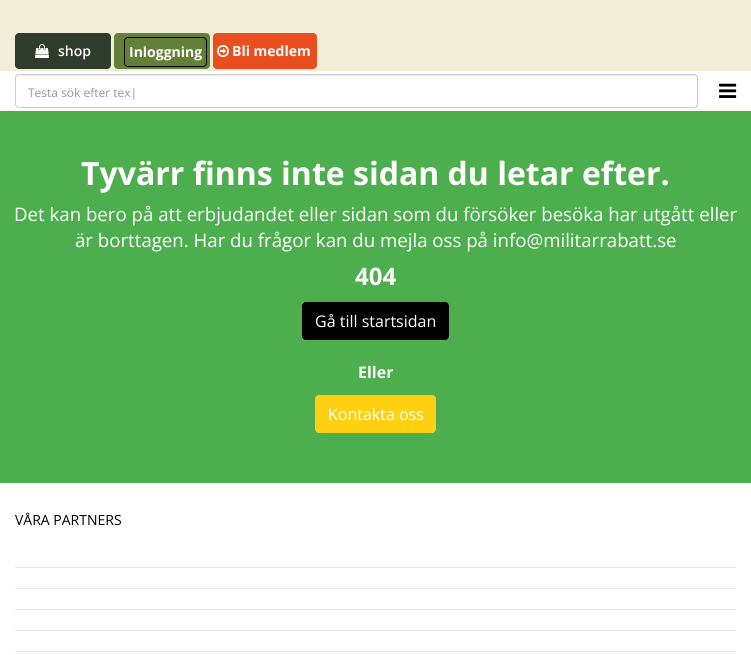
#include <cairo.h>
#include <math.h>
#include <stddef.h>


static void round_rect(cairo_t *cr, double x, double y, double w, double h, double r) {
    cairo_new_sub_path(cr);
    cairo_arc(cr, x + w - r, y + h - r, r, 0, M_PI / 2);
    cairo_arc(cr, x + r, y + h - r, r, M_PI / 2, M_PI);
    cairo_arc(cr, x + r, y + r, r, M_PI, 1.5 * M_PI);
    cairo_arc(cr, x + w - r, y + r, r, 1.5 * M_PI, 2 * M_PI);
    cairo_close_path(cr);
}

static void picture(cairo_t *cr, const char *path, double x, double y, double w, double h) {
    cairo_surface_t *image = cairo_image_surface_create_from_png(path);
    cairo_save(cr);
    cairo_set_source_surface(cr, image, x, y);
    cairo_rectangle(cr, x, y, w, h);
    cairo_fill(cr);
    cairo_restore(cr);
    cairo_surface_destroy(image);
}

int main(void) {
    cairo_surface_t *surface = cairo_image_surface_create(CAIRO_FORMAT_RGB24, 751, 655);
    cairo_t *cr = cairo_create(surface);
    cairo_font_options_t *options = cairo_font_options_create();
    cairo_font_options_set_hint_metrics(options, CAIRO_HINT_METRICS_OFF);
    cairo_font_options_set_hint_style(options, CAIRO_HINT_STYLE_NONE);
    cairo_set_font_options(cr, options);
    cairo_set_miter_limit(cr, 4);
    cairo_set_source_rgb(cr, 1, 1, 1);
    cairo_paint(cr);
    cairo_set_source_rgb(cr, 0.941, 0.933, 0.851);
    cairo_rectangle(cr, 0, 0, 751, 71);
    cairo_fill(cr);
    cairo_set_source_rgb(cr, 0.188, 0.235, 0.169);
    round_rect(cr, 15, 33, 96, 36, 4);
    cairo_fill(cr);
    picture(cr, "img1.png", 35, 44, 14, 14);
    cairo_select_font_face(cr, "Open Sans SemiBold", CAIRO_FONT_SLANT_NORMAL, CAIRO_FONT_WEIGHT_NORMAL);
    cairo_set_font_size(cr, 14);
    cairo_set_source_rgb(cr, 1, 1, 1);
    cairo_move_to(cr, 58, 56);
    cairo_show_text(cr, "shop");
    cairo_set_source_rgb(cr, 0.384, 0.502, 0.22);
    round_rect(cr, 114, 33, 96, 36, 4);
    cairo_fill(cr);
    round_rect(cr, 124.5, 37.5, 82, 29, 3.5);
    cairo_set_source_rgb(cr, 0, 0, 0);
    cairo_set_line_width(cr, 1);
    cairo_stroke(cr);
    cairo_select_font_face(cr, "Open Sans", CAIRO_FONT_SLANT_NORMAL, CAIRO_FONT_WEIGHT_BOLD);
    cairo_set_source_rgb(cr, 1, 1, 1);
    cairo_move_to(cr, 129, 57);
    cairo_show_text(cr, "Inloggning");
    cairo_set_source_rgb(cr, 0.914, 0.306, 0.118);
    round_rect(cr, 213, 33, 104, 36, 4);
    cairo_fill(cr);
    picture(cr, "img2.png", 217, 45, 12, 12);
    cairo_set_source_rgb(cr, 1, 1, 1);
    cairo_move_to(cr, 232, 56);
    cairo_show_text(cr, "Bli medlem");
    cairo_set_source_rgb(cr, 0.925, 0.925, 0.925);
    cairo_new_path(cr);
    cairo_move_to(cr, 19, 76);
    cairo_line_to(cr, 694, 76);
    cairo_curve_to(cr, 696, 76, 697, 77, 697, 79);
    cairo_line_to(cr, 697, 78);
    cairo_curve_to(cr, 697, 76, 696, 75, 694, 75);
    cairo_line_to(cr, 19, 75);
    cairo_curve_to(cr, 17, 75, 16, 76, 16, 78);
    cairo_line_to(cr, 16, 79);
    cairo_curve_to(cr, 16, 77, 17, 76, 19, 76);
    cairo_close_path(cr);
    cairo_fill(cr);
    round_rect(cr, 15.5, 74.5, 682, 33, 3.5);
    cairo_set_source_rgb(cr, 0.8, 0.8, 0.8);
    cairo_stroke(cr);
    cairo_select_font_face(cr, "Open Sans", CAIRO_FONT_SLANT_NORMAL, CAIRO_FONT_WEIGHT_NORMAL);
    cairo_set_font_size(cr, 12);
    cairo_set_source_rgb(cr, 0.6, 0.6, 0.6);
    cairo_move_to(cr, 28, 97);
    cairo_show_text(cr, "Testa sök efter tex|");
    picture(cr, "img3.png", 719, 83, 18, 15);
    cairo_set_source_rgb(cr, 0.298, 0.682, 0.298);
    cairo_rectangle(cr, 0, 111, 751, 372);
    cairo_fill(cr);
    cairo_select_font_face(cr, "Open Sans", CAIRO_FONT_SLANT_NORMAL, CAIRO_FONT_WEIGHT_BOLD);
    cairo_set_font_size(cr, 32);
    cairo_set_source_rgb(cr, 1, 1, 1);
    cairo_move_to(cr, 81, 185);
    cairo_show_text(cr, "Tyvärr finns inte sidan du letar efter.");
    cairo_select_font_face(cr, "Open Sans", CAIRO_FONT_SLANT_NORMAL, CAIRO_FONT_WEIGHT_NORMAL);
    cairo_set_font_size(cr, 18.65);
    cairo_move_to(cr, 14, 221);
    cairo_show_text(cr, "Det kan bero på att erbjudandet eller sidan som du försöker besöka har utgått eller");
    cairo_move_to(cr, 75, 247);
    cairo_show_text(cr, "är borttagen. Har du frågor kan du mejla oss på info@militarrabatt.se");
    cairo_select_font_face(cr, "Open Sans", CAIRO_FONT_SLANT_NORMAL, CAIRO_FONT_WEIGHT_BOLD);
    cairo_set_font_size(cr, 24);
    cairo_move_to(cr, 355, 285);
    cairo_show_text(cr, "404");
    cairo_set_source_rgb(cr, 0, 0, 0);
    round_rect(cr, 302.5, 302.5, 146, 37, 3.5);
    cairo_fill_preserve(cr);
    cairo_stroke(cr);
    cairo_select_font_face(cr, "Open Sans", CAIRO_FONT_SLANT_NORMAL, CAIRO_FONT_WEIGHT_NORMAL);
    cairo_set_font_size(cr, 16);
    cairo_set_source_rgb(cr, 1, 1, 1);
    cairo_move_to(cr, 315, 327);
    cairo_show_text(cr, "Gå till startsidan");
    cairo_select_font_face(cr, "Open Sans", CAIRO_FONT_SLANT_NORMAL, CAIRO_FONT_WEIGHT_BOLD);
    cairo_move_to(cr, 358, 378);
    cairo_show_text(cr, "Eller");
    cairo_set_source_rgb(cr, 1, 0.816, 0.071);
    round_rect(cr, 315.5, 395.5, 120, 37, 3.5);
    cairo_fill_preserve(cr);
    cairo_stroke(cr);
    cairo_select_font_face(cr, "Open Sans", CAIRO_FONT_SLANT_NORMAL, CAIRO_FONT_WEIGHT_NORMAL);
    cairo_set_source_rgb(cr, 1, 1, 1);
    cairo_move_to(cr, 328, 420);
    cairo_show_text(cr, "Kontakta oss");
    cairo_set_font_size(cr, 14);
    cairo_set_source_rgb(cr, 0, 0, 0);
    cairo_move_to(cr, 15, 525);
    cairo_show_text(cr, "VÅRA PARTNERS");
    cairo_set_source_rgb(cr, 0.91, 0.91, 0.91);
    cairo_rectangle(cr, 15, 567, 721, 1);
    cairo_fill(cr);
    cairo_rectangle(cr, 15, 588, 721, 1);
    cairo_fill(cr);
    cairo_rectangle(cr, 15, 609, 721, 1);
    cairo_fill(cr);
    cairo_rectangle(cr, 15, 630, 721, 1);
    cairo_fill(cr);
    cairo_rectangle(cr, 15, 651, 721, 1);
    cairo_fill(cr);
    cairo_surface_write_to_png(surface, "page.png");
    cairo_font_options_destroy(options);
    cairo_destroy(cr);
    cairo_surface_destroy(surface);
    return 0;
}
